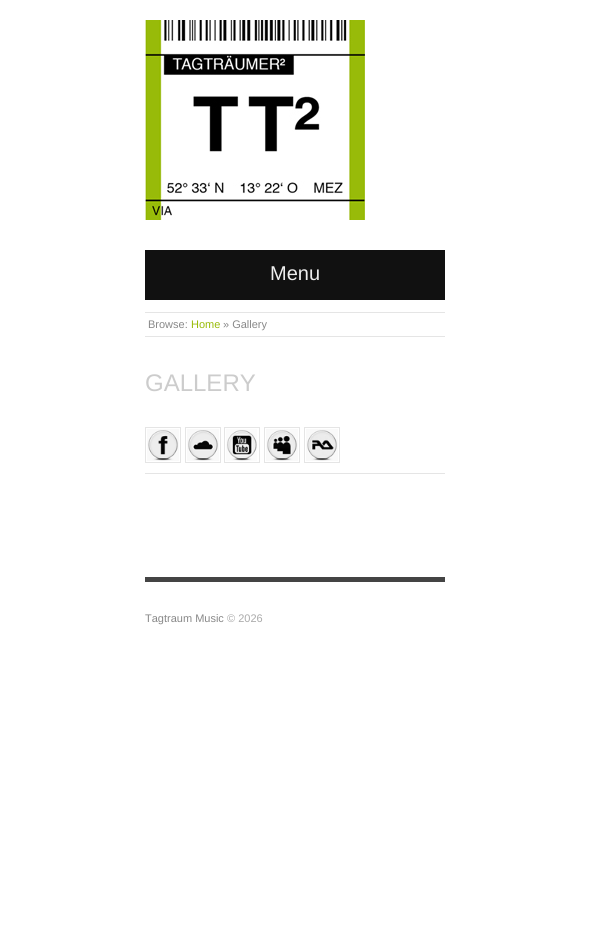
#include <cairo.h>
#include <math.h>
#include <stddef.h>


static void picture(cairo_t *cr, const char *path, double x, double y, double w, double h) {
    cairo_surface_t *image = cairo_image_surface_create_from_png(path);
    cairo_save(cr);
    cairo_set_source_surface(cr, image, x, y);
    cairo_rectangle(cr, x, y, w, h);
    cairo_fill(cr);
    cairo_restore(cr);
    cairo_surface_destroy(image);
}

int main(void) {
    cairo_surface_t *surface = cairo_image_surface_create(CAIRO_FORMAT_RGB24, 590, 925);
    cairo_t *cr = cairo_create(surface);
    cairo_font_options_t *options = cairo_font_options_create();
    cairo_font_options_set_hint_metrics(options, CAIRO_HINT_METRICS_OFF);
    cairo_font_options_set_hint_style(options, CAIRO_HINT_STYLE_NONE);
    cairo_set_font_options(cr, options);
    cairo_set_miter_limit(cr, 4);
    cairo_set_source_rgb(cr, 1, 1, 1);
    cairo_paint(cr);
    picture(cr, "img1.png", 145, 20, 220, 200);
    cairo_set_source_rgb(cr, 0.067, 0.067, 0.067);
    cairo_rectangle(cr, 145, 250, 300, 50);
    cairo_fill(cr);
    cairo_select_font_face(cr, "Liberation Sans", CAIRO_FONT_SLANT_NORMAL, CAIRO_FONT_WEIGHT_NORMAL);
    cairo_set_font_size(cr, 20);
    cairo_set_source_rgb(cr, 0.933, 0.933, 0.933);
    cairo_move_to(cr, 270, 280);
    cairo_show_text(cr, "Menu");
    cairo_set_source_rgb(cr, 0.898, 0.898, 0.898);
    cairo_rectangle(cr, 145, 312, 300, 1);
    cairo_fill(cr);
    cairo_rectangle(cr, 145, 336, 300, 1);
    cairo_fill(cr);
    cairo_set_font_size(cr, 11);
    cairo_set_source_rgb(cr, 0.533, 0.533, 0.533);
    cairo_move_to(cr, 148, 328);
    cairo_show_text(cr, "Browse:");
    cairo_set_source_rgb(cr, 0.596, 0.733, 0.035);
    cairo_move_to(cr, 191, 328);
    cairo_show_text(cr, "Home");
    cairo_set_source_rgb(cr, 0.533, 0.533, 0.533);
    cairo_move_to(cr, 223, 328);
    cairo_show_text(cr, "» Gallery");
    cairo_set_source_rgb(cr, 0.898, 0.898, 0.898);
    cairo_rectangle(cr, 145, 473, 300, 1);
    cairo_fill(cr);
    cairo_set_font_size(cr, 24);
    cairo_set_source_rgb(cr, 0.8, 0.8, 0.8);
    cairo_move_to(cr, 145, 391);
    cairo_show_text(cr, "GALLERY");
    cairo_rectangle(cr, 145.5, 427.5, 35, 35);
    cairo_set_source_rgb(cr, 0.898, 0.898, 0.898);
    cairo_set_line_width(cr, 1);
    cairo_stroke(cr);
    cairo_rectangle(cr, 185.5, 427.5, 35, 35);
    cairo_stroke(cr);
    cairo_rectangle(cr, 224.5, 427.5, 35, 35);
    cairo_stroke(cr);
    cairo_rectangle(cr, 264.5, 427.5, 35, 35);
    cairo_stroke(cr);
    cairo_rectangle(cr, 304.5, 427.5, 35, 35);
    cairo_stroke(cr);
    picture(cr, "img2.png", 147, 429, 32, 32);
    picture(cr, "img3.png", 187, 429, 32, 32);
    picture(cr, "img4.png", 226, 429, 31, 32);
    picture(cr, "img5.png", 266, 429, 32, 32);
    picture(cr, "img6.png", 306, 429, 32, 32);
    cairo_set_source_rgb(cr, 0.267, 0.267, 0.267);
    cairo_rectangle(cr, 145, 577, 300, 5);
    cairo_fill(cr);
    cairo_set_font_size(cr, 11);
    cairo_set_source_rgb(cr, 0.533, 0.533, 0.533);
    cairo_move_to(cr, 145, 622);
    cairo_show_text(cr, "Tagtraum Music");
    cairo_set_source_rgb(cr, 0.667, 0.667, 0.667);
    cairo_move_to(cr, 227, 622);
    cairo_show_text(cr, "© 2026");
    cairo_surface_write_to_png(surface, "page.png");
    cairo_font_options_destroy(options);
    cairo_destroy(cr);
    cairo_surface_destroy(surface);
    return 0;
}
